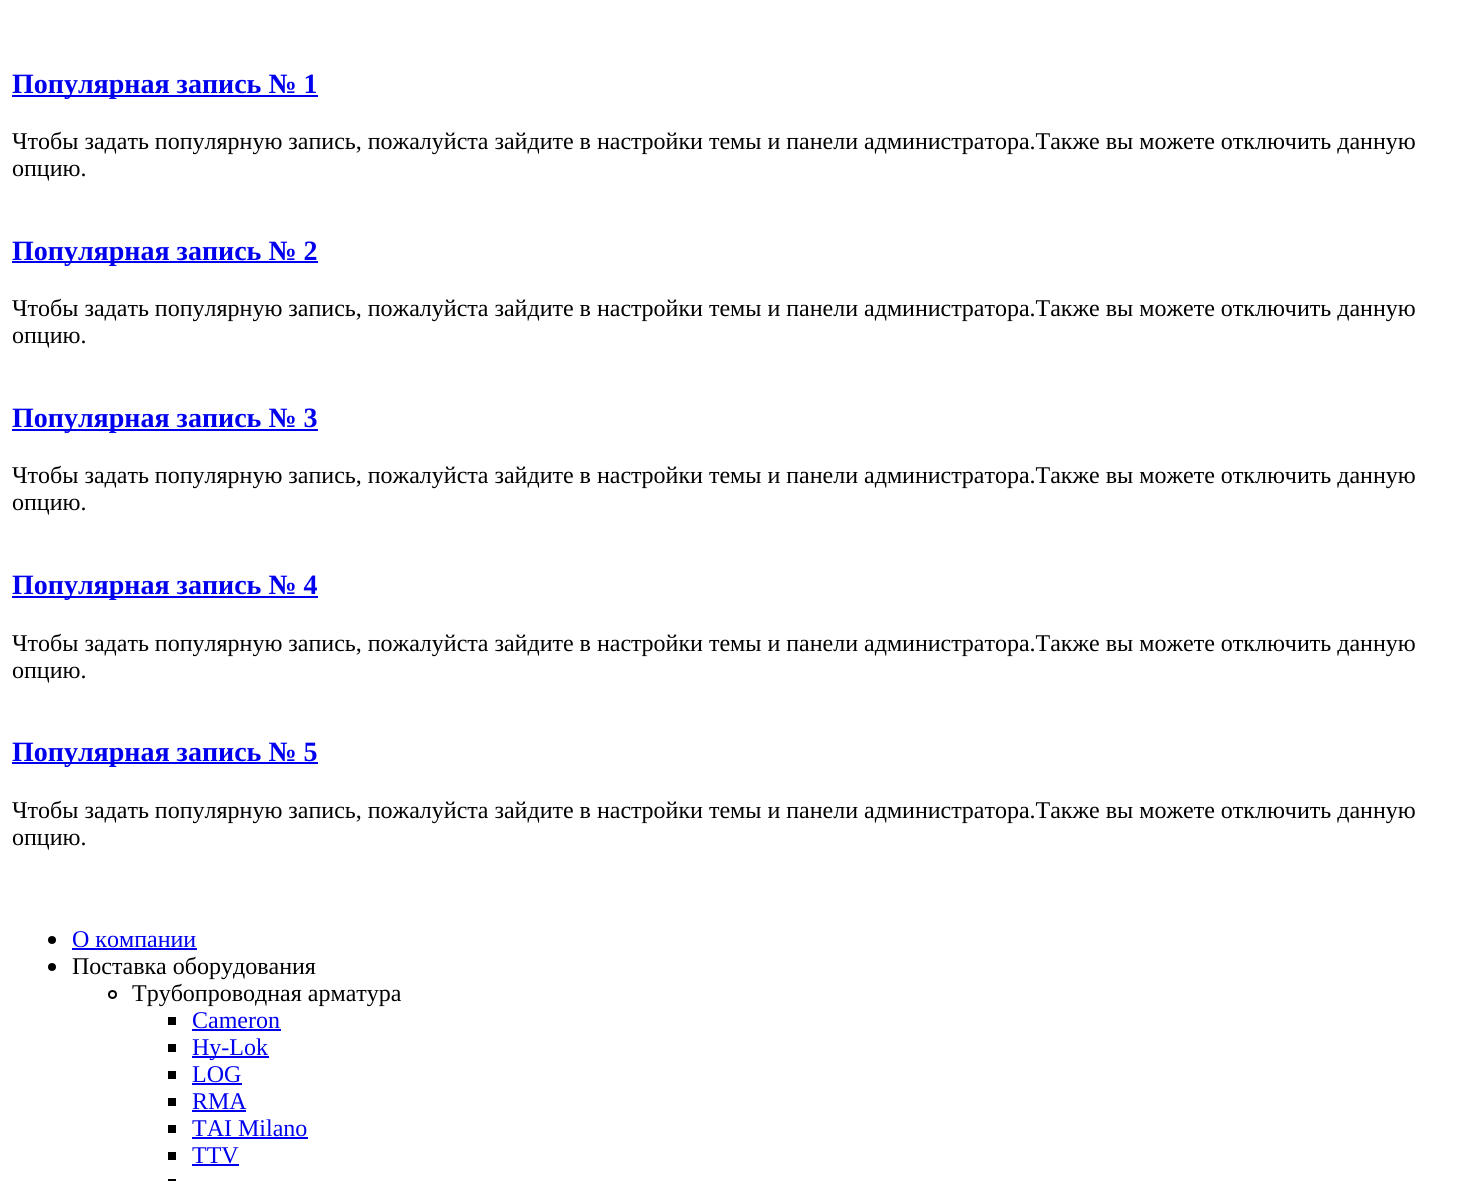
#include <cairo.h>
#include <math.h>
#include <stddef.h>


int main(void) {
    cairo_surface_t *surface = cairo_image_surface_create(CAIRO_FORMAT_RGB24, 1469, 1181);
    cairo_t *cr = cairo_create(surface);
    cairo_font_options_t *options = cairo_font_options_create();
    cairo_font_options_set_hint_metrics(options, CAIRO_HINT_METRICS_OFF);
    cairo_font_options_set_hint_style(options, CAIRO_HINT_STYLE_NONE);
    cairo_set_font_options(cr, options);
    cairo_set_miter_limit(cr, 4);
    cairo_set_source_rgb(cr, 1, 1, 1);
    cairo_paint(cr);
    cairo_set_source_rgb(cr, 0, 0, 0.933);
    cairo_rectangle(cr, 12, 95, 306, 2);
    cairo_fill(cr);
    cairo_select_font_face(cr, "Liberation Serif", CAIRO_FONT_SLANT_NORMAL, CAIRO_FONT_WEIGHT_BOLD);
    cairo_set_font_size(cr, 28);
    cairo_move_to(cr, 12, 93);
    cairo_show_text(cr, "Популярная запись № 1");
    cairo_select_font_face(cr, "Liberation Serif", CAIRO_FONT_SLANT_NORMAL, CAIRO_FONT_WEIGHT_NORMAL);
    cairo_set_font_size(cr, 24);
    cairo_set_source_rgb(cr, 0, 0, 0);
    cairo_move_to(cr, 12, 149);
    cairo_show_text(cr, "Чтобы задать популярную запись, пожалуйста зайдите в настройки темы и панели администратора.Также вы можете отключить данную");
    cairo_move_to(cr, 12, 176);
    cairo_show_text(cr, "опцию.");
    cairo_set_source_rgb(cr, 0, 0, 0.933);
    cairo_rectangle(cr, 12, 261, 306, 2);
    cairo_fill(cr);
    cairo_select_font_face(cr, "Liberation Serif", CAIRO_FONT_SLANT_NORMAL, CAIRO_FONT_WEIGHT_BOLD);
    cairo_set_font_size(cr, 28);
    cairo_move_to(cr, 12, 260);
    cairo_show_text(cr, "Популярная запись № 2");
    cairo_select_font_face(cr, "Liberation Serif", CAIRO_FONT_SLANT_NORMAL, CAIRO_FONT_WEIGHT_NORMAL);
    cairo_set_font_size(cr, 24);
    cairo_set_source_rgb(cr, 0, 0, 0);
    cairo_move_to(cr, 12, 316);
    cairo_show_text(cr, "Чтобы задать популярную запись, пожалуйста зайдите в настройки темы и панели администратора.Также вы можете отключить данную");
    cairo_move_to(cr, 12, 343);
    cairo_show_text(cr, "опцию.");
    cairo_set_source_rgb(cr, 0, 0, 0.933);
    cairo_rectangle(cr, 12, 429, 306, 2);
    cairo_fill(cr);
    cairo_select_font_face(cr, "Liberation Serif", CAIRO_FONT_SLANT_NORMAL, CAIRO_FONT_WEIGHT_BOLD);
    cairo_set_font_size(cr, 28);
    cairo_move_to(cr, 12, 427);
    cairo_show_text(cr, "Популярная запись № 3");
    cairo_select_font_face(cr, "Liberation Serif", CAIRO_FONT_SLANT_NORMAL, CAIRO_FONT_WEIGHT_NORMAL);
    cairo_set_font_size(cr, 24);
    cairo_set_source_rgb(cr, 0, 0, 0);
    cairo_move_to(cr, 12, 483);
    cairo_show_text(cr, "Чтобы задать популярную запись, пожалуйста зайдите в настройки темы и панели администратора.Также вы можете отключить данную");
    cairo_move_to(cr, 12, 510);
    cairo_show_text(cr, "опцию.");
    cairo_set_source_rgb(cr, 0, 0, 0.933);
    cairo_rectangle(cr, 12, 596, 306, 2);
    cairo_fill(cr);
    cairo_select_font_face(cr, "Liberation Serif", CAIRO_FONT_SLANT_NORMAL, CAIRO_FONT_WEIGHT_BOLD);
    cairo_set_font_size(cr, 28);
    cairo_move_to(cr, 12, 594);
    cairo_show_text(cr, "Популярная запись № 4");
    cairo_select_font_face(cr, "Liberation Serif", CAIRO_FONT_SLANT_NORMAL, CAIRO_FONT_WEIGHT_NORMAL);
    cairo_set_font_size(cr, 24);
    cairo_set_source_rgb(cr, 0, 0, 0);
    cairo_move_to(cr, 12, 651);
    cairo_show_text(cr, "Чтобы задать популярную запись, пожалуйста зайдите в настройки темы и панели администратора.Также вы можете отключить данную");
    cairo_move_to(cr, 12, 678);
    cairo_show_text(cr, "опцию.");
    cairo_set_source_rgb(cr, 0, 0, 0.933);
    cairo_rectangle(cr, 12, 762, 306, 2);
    cairo_fill(cr);
    cairo_select_font_face(cr, "Liberation Serif", CAIRO_FONT_SLANT_NORMAL, CAIRO_FONT_WEIGHT_BOLD);
    cairo_set_font_size(cr, 28);
    cairo_move_to(cr, 12, 761);
    cairo_show_text(cr, "Популярная запись № 5");
    cairo_select_font_face(cr, "Liberation Serif", CAIRO_FONT_SLANT_NORMAL, CAIRO_FONT_WEIGHT_NORMAL);
    cairo_set_font_size(cr, 24);
    cairo_set_source_rgb(cr, 0, 0, 0);
    cairo_move_to(cr, 12, 818);
    cairo_show_text(cr, "Чтобы задать популярную запись, пожалуйста зайдите в настройки темы и панели администратора.Также вы можете отключить данную");
    cairo_move_to(cr, 12, 845);
    cairo_show_text(cr, "опцию.");
    cairo_new_path(cr);
    cairo_arc(cr, 52, 940, 4, 0, 2 * M_PI);
    cairo_fill(cr);
    cairo_set_source_rgb(cr, 0, 0, 0.933);
    cairo_move_to(cr, 72, 947);
    cairo_show_text(cr, "О компании");
    cairo_rectangle(cr, 72, 948, 125, 2);
    cairo_fill(cr);
    cairo_set_source_rgb(cr, 0, 0, 0);
    cairo_arc(cr, 52, 967, 4, 0, 2 * M_PI);
    cairo_fill(cr);
    cairo_move_to(cr, 72, 974);
    cairo_show_text(cr, "Поставка оборудования");
    cairo_new_path(cr);
    cairo_arc(cr, 112.5, 994.5, 3.5, 0, 2 * M_PI);
    cairo_stroke(cr);
    cairo_move_to(cr, 132, 1001);
    cairo_show_text(cr, "Трубопроводная арматура");
    cairo_rectangle(cr, 168, 1017, 8, 8);
    cairo_fill(cr);
    cairo_set_source_rgb(cr, 0, 0, 0.933);
    cairo_move_to(cr, 192, 1028);
    cairo_show_text(cr, "Cameron");
    cairo_rectangle(cr, 192, 1029, 89, 2);
    cairo_fill(cr);
    cairo_set_source_rgb(cr, 0, 0, 0);
    cairo_rectangle(cr, 168, 1044, 8, 8);
    cairo_fill(cr);
    cairo_set_source_rgb(cr, 0, 0, 0.933);
    cairo_rectangle(cr, 192, 1056, 77, 2);
    cairo_fill(cr);
    cairo_move_to(cr, 192, 1055);
    cairo_show_text(cr, "Hy-Lok");
    cairo_set_source_rgb(cr, 0, 0, 0);
    cairo_rectangle(cr, 168, 1071, 8, 8);
    cairo_fill(cr);
    cairo_set_source_rgb(cr, 0, 0, 0.933);
    cairo_move_to(cr, 192, 1082);
    cairo_show_text(cr, "LOG");
    cairo_rectangle(cr, 192, 1083, 50, 2);
    cairo_fill(cr);
    cairo_set_source_rgb(cr, 0, 0, 0);
    cairo_rectangle(cr, 168, 1098, 8, 8);
    cairo_fill(cr);
    cairo_set_source_rgb(cr, 0, 0, 0.933);
    cairo_move_to(cr, 192, 1109);
    cairo_show_text(cr, "RMA");
    cairo_rectangle(cr, 192, 1110, 54, 2);
    cairo_fill(cr);
    cairo_set_source_rgb(cr, 0, 0, 0);
    cairo_rectangle(cr, 168, 1125, 8, 8);
    cairo_fill(cr);
    cairo_set_source_rgb(cr, 0, 0, 0.933);
    cairo_move_to(cr, 192, 1136);
    cairo_show_text(cr, "TAI Milano");
    cairo_rectangle(cr, 192, 1137, 116, 2);
    cairo_fill(cr);
    cairo_set_source_rgb(cr, 0, 0, 0);
    cairo_rectangle(cr, 168, 1152, 8, 8);
    cairo_fill(cr);
    cairo_set_source_rgb(cr, 0, 0, 0.933);
    cairo_move_to(cr, 192, 1163);
    cairo_show_text(cr, "TTV");
    cairo_rectangle(cr, 192, 1164, 47, 2);
    cairo_fill(cr);
    cairo_set_source_rgb(cr, 0, 0, 0);
    cairo_rectangle(cr, 168, 1179, 8, 2);
    cairo_fill(cr);
    cairo_surface_write_to_png(surface, "page.png");
    cairo_font_options_destroy(options);
    cairo_destroy(cr);
    cairo_surface_destroy(surface);
    return 0;
}
